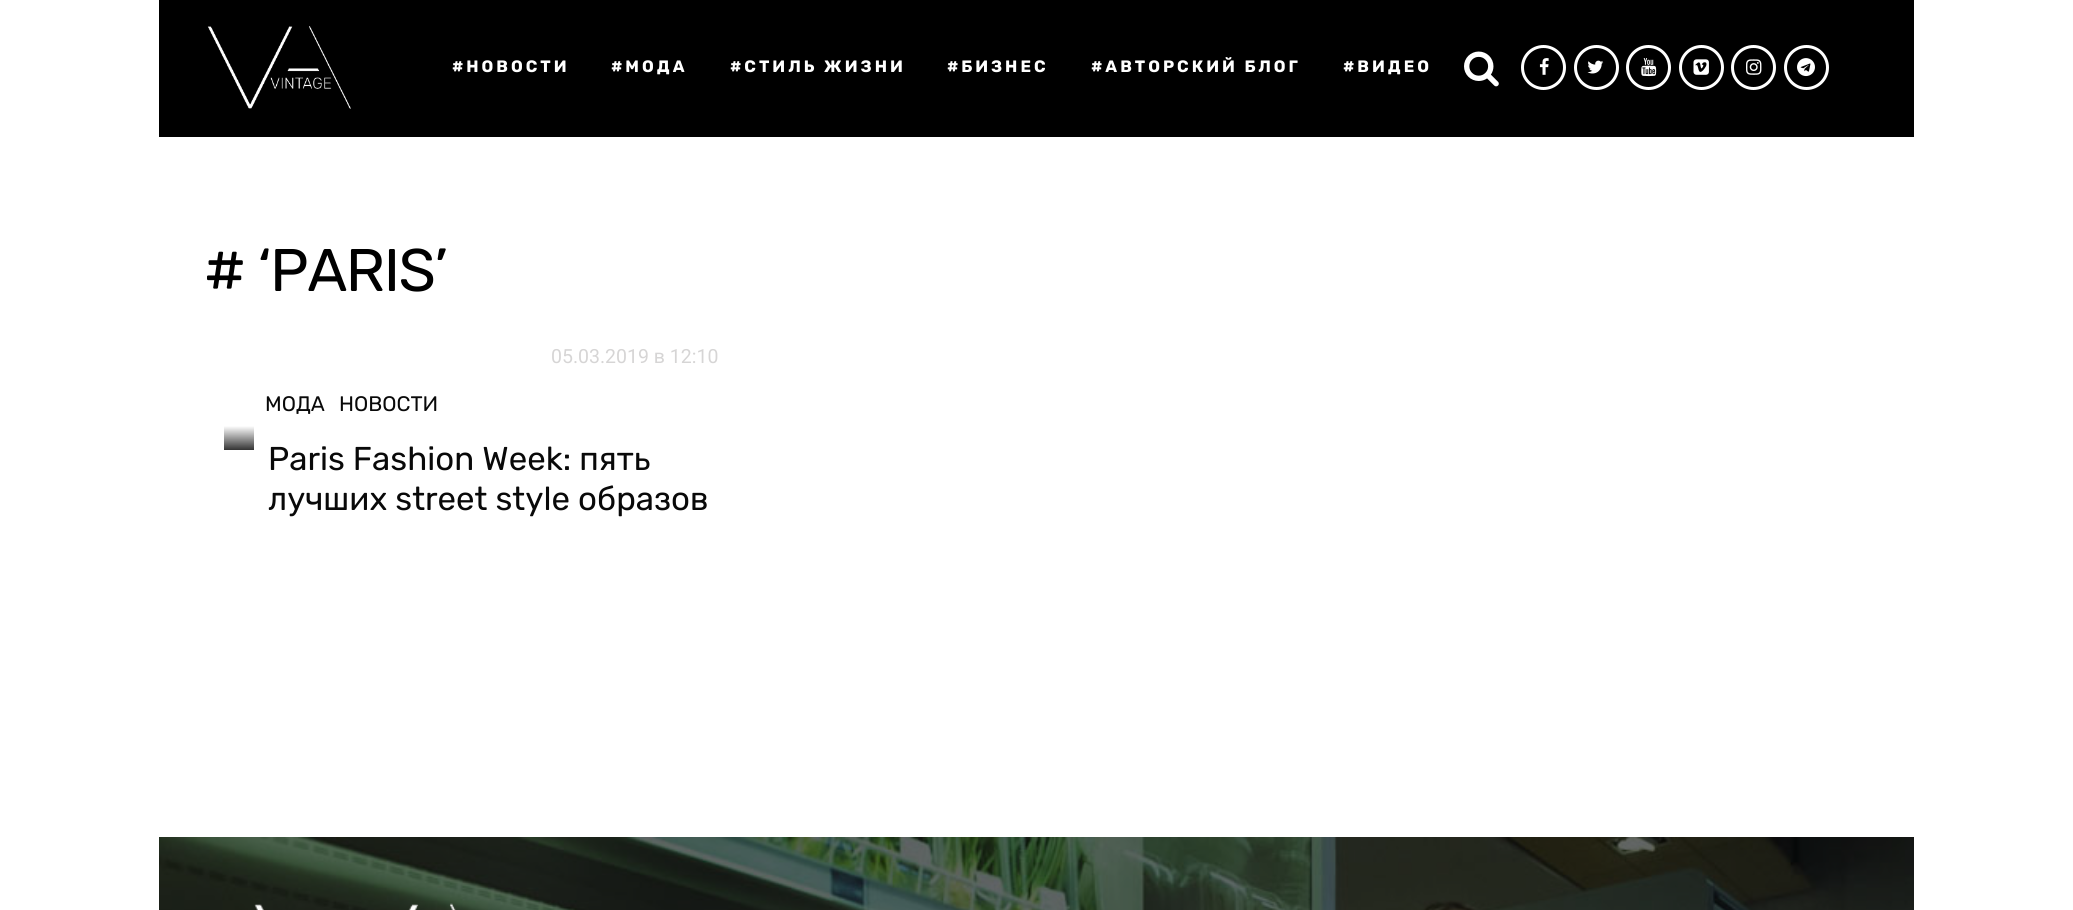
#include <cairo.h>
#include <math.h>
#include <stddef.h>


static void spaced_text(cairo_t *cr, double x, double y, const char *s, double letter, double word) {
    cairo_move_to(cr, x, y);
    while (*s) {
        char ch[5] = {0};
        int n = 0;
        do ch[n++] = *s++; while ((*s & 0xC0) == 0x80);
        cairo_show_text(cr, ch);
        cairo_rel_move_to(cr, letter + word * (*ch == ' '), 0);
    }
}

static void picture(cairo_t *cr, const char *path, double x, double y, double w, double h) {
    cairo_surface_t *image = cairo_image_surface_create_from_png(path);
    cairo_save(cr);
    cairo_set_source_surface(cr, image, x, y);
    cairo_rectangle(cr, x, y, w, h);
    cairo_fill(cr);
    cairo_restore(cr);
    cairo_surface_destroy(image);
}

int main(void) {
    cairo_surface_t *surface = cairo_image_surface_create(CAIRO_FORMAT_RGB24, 2073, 910);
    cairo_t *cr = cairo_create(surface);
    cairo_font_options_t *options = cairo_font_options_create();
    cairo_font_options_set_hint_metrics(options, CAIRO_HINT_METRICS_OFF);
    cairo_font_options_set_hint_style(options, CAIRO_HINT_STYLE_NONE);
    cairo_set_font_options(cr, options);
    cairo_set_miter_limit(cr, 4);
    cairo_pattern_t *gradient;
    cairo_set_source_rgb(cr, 1, 1, 1);
    cairo_paint(cr);
    cairo_set_source_rgb(cr, 0, 0, 0);
    cairo_rectangle(cr, 159, 0, 1755, 137);
    cairo_fill(cr);
    picture(cr, "img1.png", 207, 26, 144, 83);
    cairo_select_font_face(cr, "Rubik", CAIRO_FONT_SLANT_NORMAL, CAIRO_FONT_WEIGHT_BOLD);
    cairo_set_font_size(cr, 16.5);
    cairo_set_source_rgb(cr, 1, 1, 1);
    spaced_text(cr, 452, 72, "#НОВОСТИ", 3, 0);
    spaced_text(cr, 611, 72, "#МОДА", 3, 0);
    spaced_text(cr, 730, 72, "#СТИЛЬ ЖИЗНИ", 3, 0);
    spaced_text(cr, 947, 72, "#БИЗНЕС", 3, 0);
    spaced_text(cr, 1091, 72, "#АВТОРСКИЙ БЛОГ", 3, 0);
    spaced_text(cr, 1343, 72, "#ВИДЕО", 3, 0);
    picture(cr, "img2.png", 1464, 51, 35, 36);
    cairo_arc(cr, 1543.5, 67.5, 21, 0, 2 * M_PI);
    cairo_set_line_width(cr, 3);
    cairo_stroke(cr);
    picture(cr, "img3.png", 1539, 58, 10, 17);
    cairo_arc(cr, 1596.5, 67.5, 21, 0, 2 * M_PI);
    cairo_stroke(cr);
    picture(cr, "img4.png", 1587, 60, 17, 14);
    cairo_arc(cr, 1648.5, 67.5, 21, 0, 2 * M_PI);
    cairo_stroke(cr);
    picture(cr, "img5.png", 1641, 58, 16, 19);
    cairo_arc(cr, 1701.5, 67.5, 21, 0, 2 * M_PI);
    cairo_stroke(cr);
    picture(cr, "img6.png", 1693, 59, 16, 16);
    cairo_arc(cr, 1753.5, 67.5, 21, 0, 2 * M_PI);
    cairo_stroke(cr);
    picture(cr, "img7.png", 1746, 59, 16, 16);
    cairo_arc(cr, 1806.5, 67.5, 21, 0, 2 * M_PI);
    cairo_stroke(cr);
    picture(cr, "img8.png", 1797, 58, 18, 19);
    cairo_select_font_face(cr, "Rubik", CAIRO_FONT_SLANT_NORMAL, CAIRO_FONT_WEIGHT_NORMAL);
    cairo_set_font_size(cr, 60);
    cairo_set_source_rgb(cr, 0, 0, 0);
    spaced_text(cr, 204, 291, "# ‘PARIS’", -1.5, 0);
    cairo_select_font_face(cr, "Roboto", CAIRO_FONT_SLANT_NORMAL, CAIRO_FONT_WEIGHT_NORMAL);
    cairo_set_font_size(cr, 19.5);
    cairo_set_source_rgb(cr, 0.839, 0.835, 0.835);
    cairo_move_to(cr, 551, 363);
    cairo_show_text(cr, "05.03.2019 в 12:10");
    gradient = cairo_pattern_create_linear(482, 426, 482, 450);
    cairo_pattern_add_color_stop_rgba(gradient, 0, 1, 1, 1, 1);
    cairo_pattern_add_color_stop_rgba(gradient, 1, 0.2, 0.2, 0.2, 1);
    cairo_set_source(cr, gradient);
    cairo_pattern_destroy(gradient);
    cairo_rectangle(cr, 224, 426, 30, 24);
    cairo_fill(cr);
    cairo_select_font_face(cr, "Rubik", CAIRO_FONT_SLANT_NORMAL, CAIRO_FONT_WEIGHT_NORMAL);
    cairo_set_font_size(cr, 21);
    cairo_set_source_rgb(cr, 0.039, 0.039, 0.039);
    cairo_move_to(cr, 265, 411);
    cairo_show_text(cr, "МОДА");
    cairo_move_to(cr, 339, 411);
    cairo_show_text(cr, "НОВОСТИ");
    cairo_set_font_size(cr, 33);
    cairo_move_to(cr, 268, 470);
    cairo_show_text(cr, "Paris Fashion Week: пять");
    cairo_move_to(cr, 268, 510);
    cairo_show_text(cr, "лучших street style образов");
    cairo_set_source_rgb(cr, 0, 0, 0);
    cairo_rectangle(cr, 159, 837, 1755, 73);
    cairo_fill(cr);
    picture(cr, "img9.png", 159, 837, 1755, 73);
    picture(cr, "img10.png", 254, 903, 202, 7);
    cairo_surface_write_to_png(surface, "page.png");
    cairo_font_options_destroy(options);
    cairo_destroy(cr);
    cairo_surface_destroy(surface);
    return 0;
}
